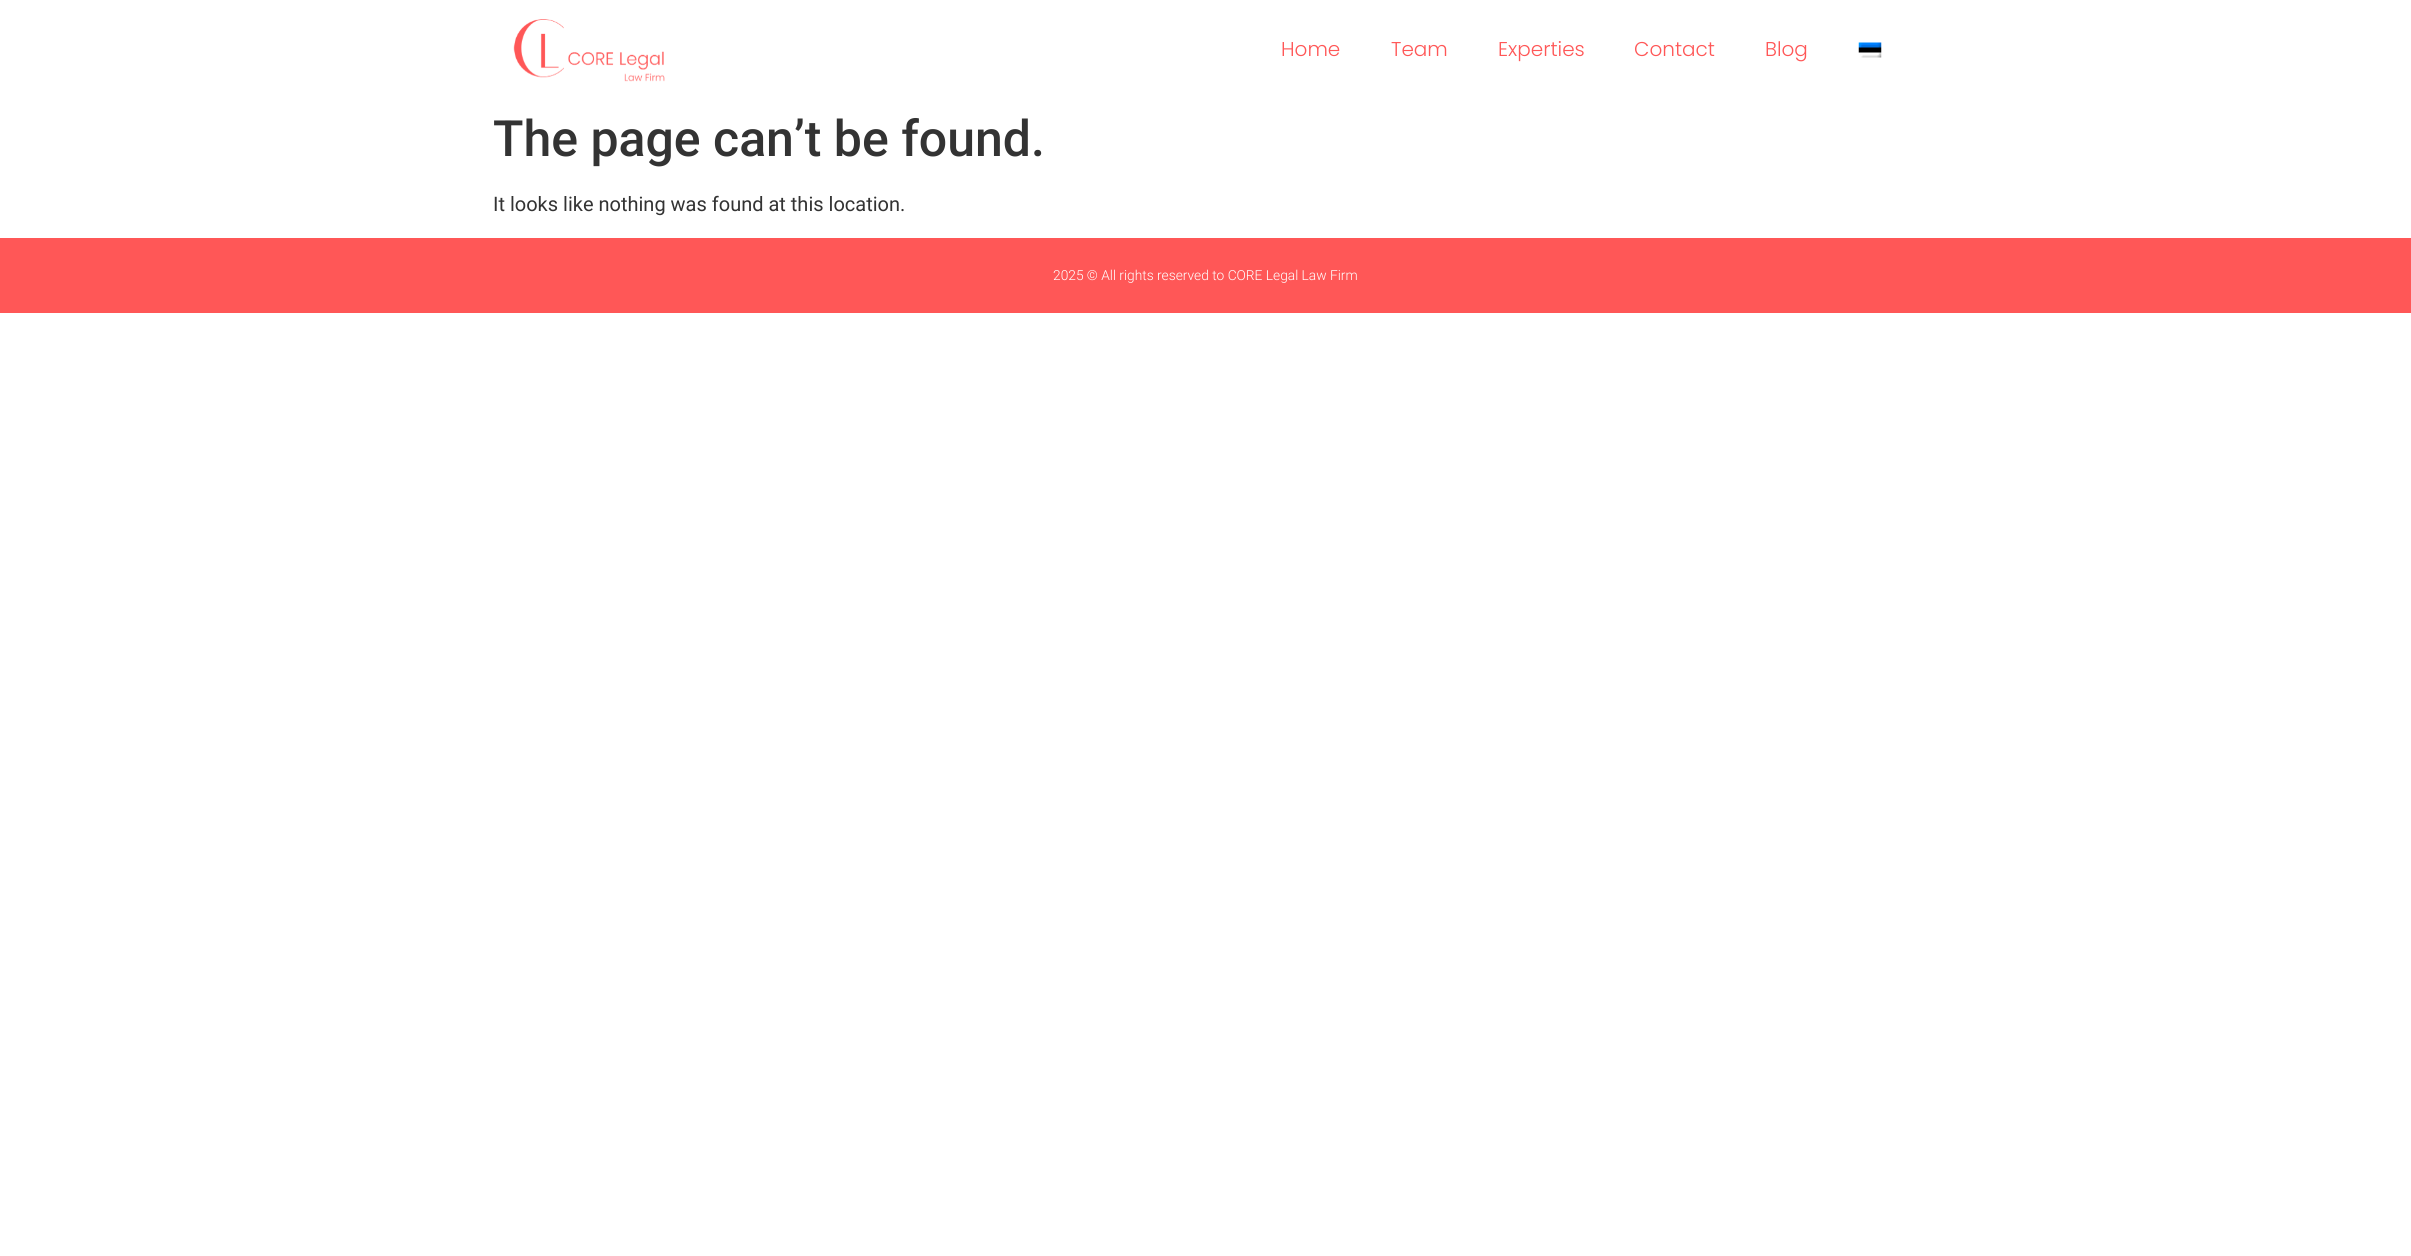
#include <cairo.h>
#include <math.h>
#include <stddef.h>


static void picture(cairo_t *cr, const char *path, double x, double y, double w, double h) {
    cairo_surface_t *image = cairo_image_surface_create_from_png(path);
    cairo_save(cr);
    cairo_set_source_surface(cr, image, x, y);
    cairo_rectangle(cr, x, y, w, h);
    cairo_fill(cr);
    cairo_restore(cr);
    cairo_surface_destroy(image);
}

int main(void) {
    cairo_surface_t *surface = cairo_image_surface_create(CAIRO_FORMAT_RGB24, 2411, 1256);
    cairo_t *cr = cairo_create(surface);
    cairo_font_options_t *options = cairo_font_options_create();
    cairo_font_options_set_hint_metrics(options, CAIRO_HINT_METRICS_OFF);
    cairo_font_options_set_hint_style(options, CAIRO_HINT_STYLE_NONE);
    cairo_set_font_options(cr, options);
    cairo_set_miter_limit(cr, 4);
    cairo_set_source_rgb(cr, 1, 1, 1);
    cairo_paint(cr);
    picture(cr, "img1.png", 513, 19, 152, 63);
    cairo_select_font_face(cr, "Poppins Light", CAIRO_FONT_SLANT_NORMAL, CAIRO_FONT_WEIGHT_NORMAL);
    cairo_set_font_size(cr, 20);
    cairo_set_source_rgb(cr, 1, 0.341, 0.341);
    cairo_move_to(cr, 1281, 56);
    cairo_show_text(cr, "Home");
    cairo_move_to(cr, 1391, 56);
    cairo_show_text(cr, "Team");
    cairo_move_to(cr, 1498, 56);
    cairo_show_text(cr, "Experties");
    cairo_move_to(cr, 1634, 56);
    cairo_show_text(cr, "Contact");
    cairo_move_to(cr, 1765, 56);
    cairo_show_text(cr, "Blog");
    picture(cr, "img2.png", 1858, 42, 24, 16);
    cairo_select_font_face(cr, "Roboto Medium", CAIRO_FONT_SLANT_NORMAL, CAIRO_FONT_WEIGHT_NORMAL);
    cairo_set_font_size(cr, 50);
    cairo_set_source_rgb(cr, 0.2, 0.2, 0.2);
    cairo_move_to(cr, 493, 156);
    cairo_show_text(cr, "The page can’t be found.");
    cairo_select_font_face(cr, "Roboto", CAIRO_FONT_SLANT_NORMAL, CAIRO_FONT_WEIGHT_NORMAL);
    cairo_set_font_size(cr, 20);
    cairo_move_to(cr, 493, 211);
    cairo_show_text(cr, "It looks like nothing was found at this location.");
    cairo_set_source_rgb(cr, 1, 0.341, 0.341);
    cairo_rectangle(cr, 0, 238, 2411, 75);
    cairo_fill(cr);
    cairo_select_font_face(cr, "Roboto Light", CAIRO_FONT_SLANT_NORMAL, CAIRO_FONT_WEIGHT_NORMAL);
    cairo_set_font_size(cr, 13.75);
    cairo_set_source_rgb(cr, 1, 1, 1);
    cairo_move_to(cr, 1053, 280);
    cairo_show_text(cr, "2025 © All rights reserved to CORE Legal Law Firm");
    cairo_surface_write_to_png(surface, "page.png");
    cairo_font_options_destroy(options);
    cairo_destroy(cr);
    cairo_surface_destroy(surface);
    return 0;
}
